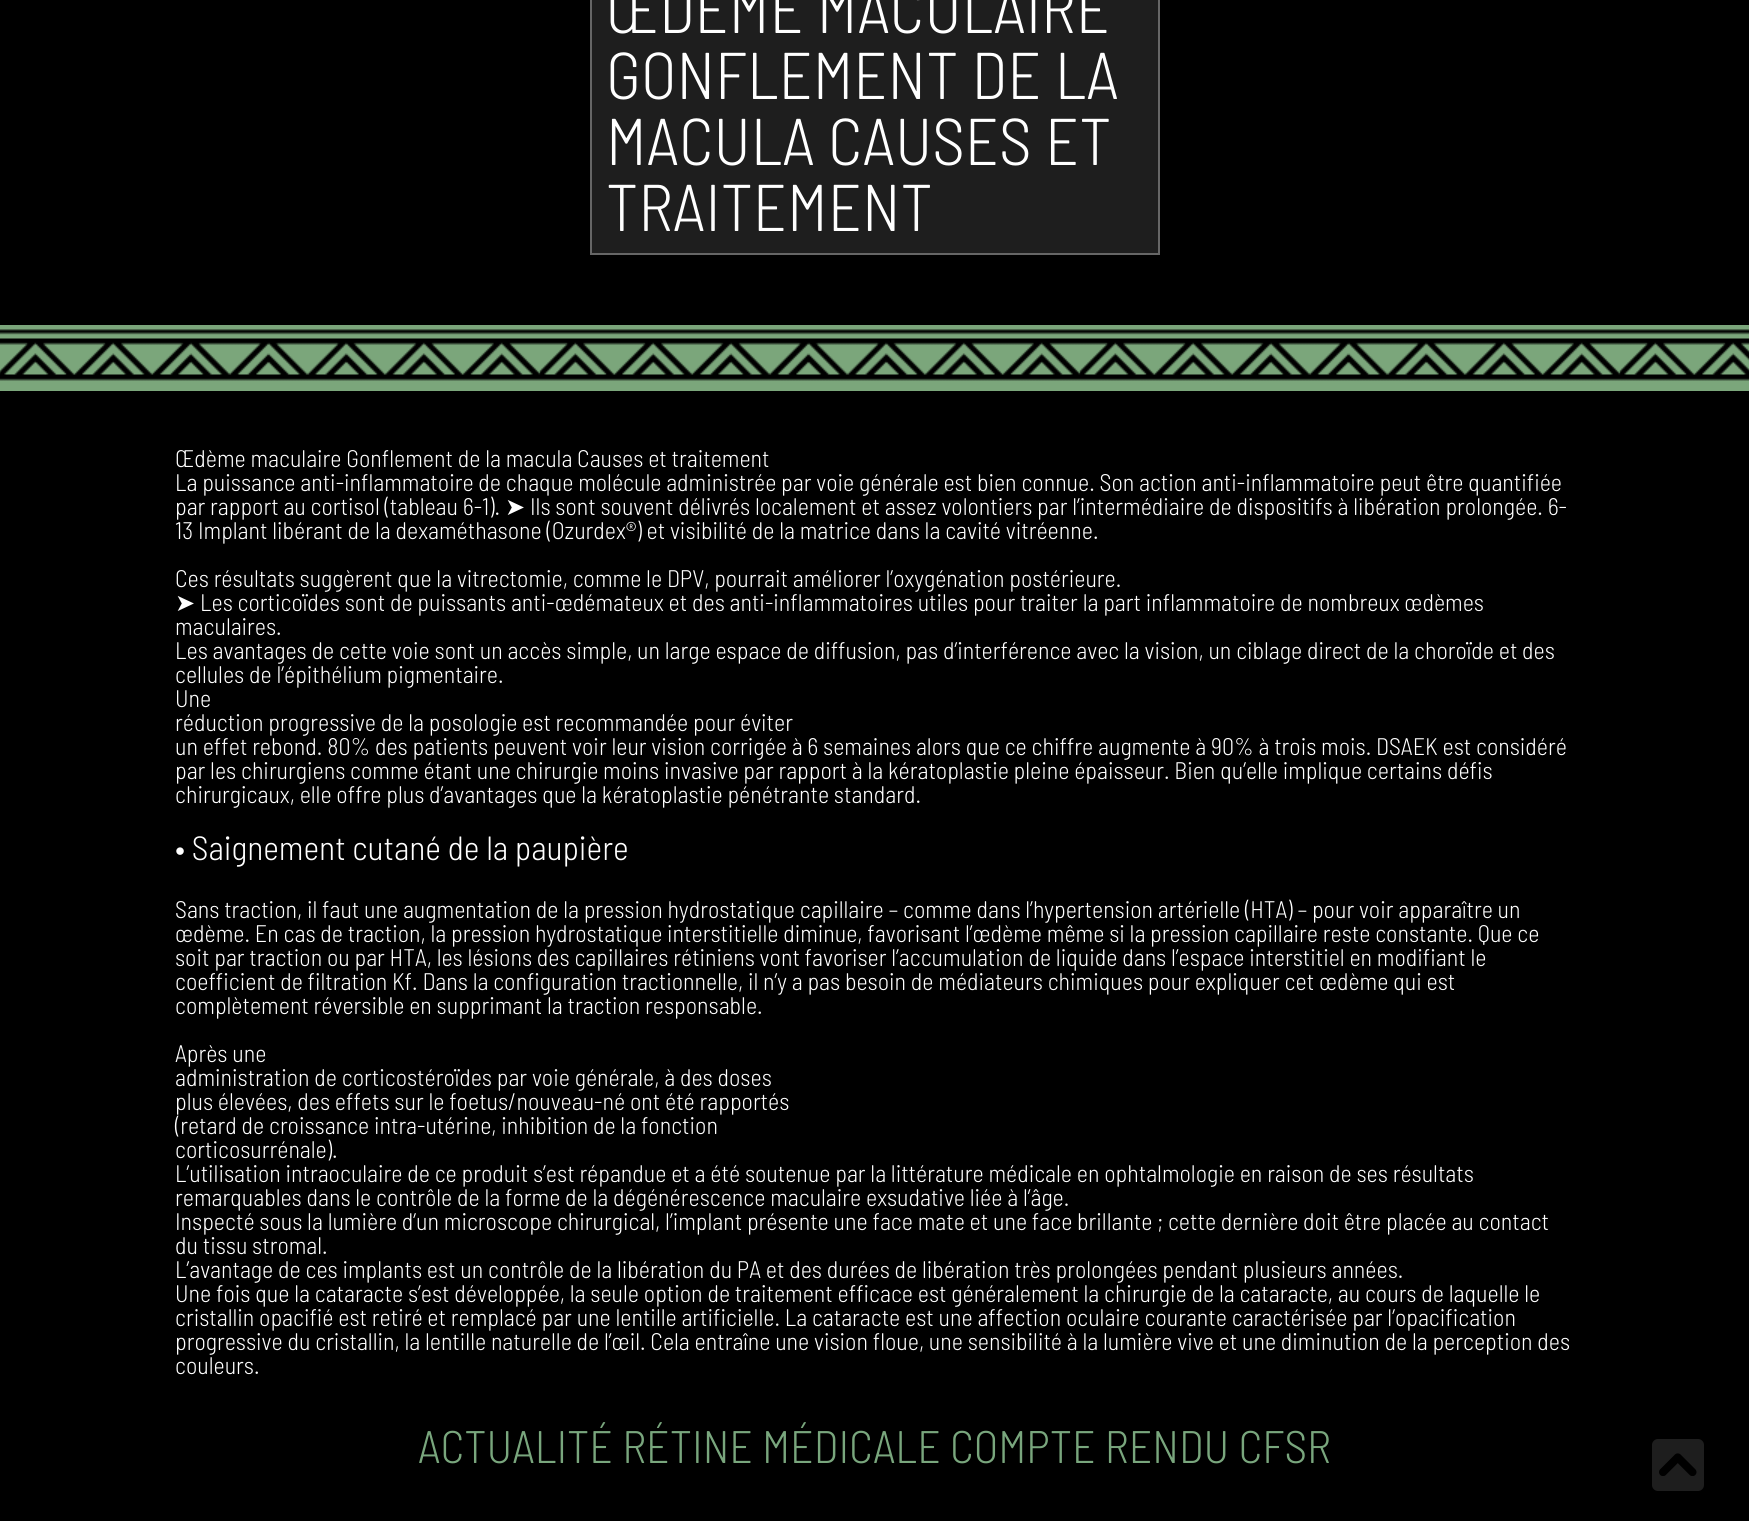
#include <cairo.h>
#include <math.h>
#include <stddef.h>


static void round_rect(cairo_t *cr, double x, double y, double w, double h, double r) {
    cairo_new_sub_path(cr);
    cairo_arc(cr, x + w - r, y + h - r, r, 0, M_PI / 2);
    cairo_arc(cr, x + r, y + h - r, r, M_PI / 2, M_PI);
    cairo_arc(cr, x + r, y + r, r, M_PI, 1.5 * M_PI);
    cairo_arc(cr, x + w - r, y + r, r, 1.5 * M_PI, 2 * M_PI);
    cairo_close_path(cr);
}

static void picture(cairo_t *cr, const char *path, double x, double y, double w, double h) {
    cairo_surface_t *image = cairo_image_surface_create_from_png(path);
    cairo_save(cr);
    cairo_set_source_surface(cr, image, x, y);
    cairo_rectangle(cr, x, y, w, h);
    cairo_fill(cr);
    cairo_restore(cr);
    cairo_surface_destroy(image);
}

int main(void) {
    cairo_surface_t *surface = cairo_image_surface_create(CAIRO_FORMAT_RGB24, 1749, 1521);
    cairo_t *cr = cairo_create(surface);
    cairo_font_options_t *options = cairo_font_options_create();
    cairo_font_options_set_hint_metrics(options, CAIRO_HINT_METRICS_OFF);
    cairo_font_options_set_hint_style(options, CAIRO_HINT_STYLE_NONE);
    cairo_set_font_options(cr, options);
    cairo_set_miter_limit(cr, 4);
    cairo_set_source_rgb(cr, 0, 0, 0);
    cairo_paint(cr);
    cairo_set_source_rgb(cr, 0.118, 0.118, 0.118);
    cairo_rectangle(cr, 591, -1, 568, 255);
    cairo_fill_preserve(cr);
    cairo_set_source_rgb(cr, 0.4, 0.4, 0.4);
    cairo_stroke(cr);
    cairo_select_font_face(cr, "Barlow Semi Condensed Light", CAIRO_FONT_SLANT_NORMAL, CAIRO_FONT_WEIGHT_NORMAL);
    cairo_set_font_size(cr, 66);
    cairo_set_source_rgb(cr, 1, 1, 1);
    cairo_move_to(cr, 606, 33);
    cairo_show_text(cr, "ŒDÈME MACULAIRE");
    cairo_move_to(cr, 606, 99);
    cairo_show_text(cr, "GONFLEMENT DE LA");
    cairo_move_to(cr, 606, 165);
    cairo_show_text(cr, "MACULA CAUSES ET");
    cairo_move_to(cr, 606, 231);
    cairo_show_text(cr, "TRAITEMENT");
    picture(cr, "img1.png", 0, 325, 1749, 66);
    cairo_set_font_size(cr, 24);
    cairo_move_to(cr, 175, 467);
    cairo_show_text(cr, "Œdème maculaire Gonflement de la macula Causes et traitement");
    cairo_move_to(cr, 175, 491);
    cairo_show_text(cr, "La puissance anti-inflammatoire de chaque molécule administrée par voie générale est bien connue. Son action anti-inflammatoire peut être quantifiée");
    cairo_move_to(cr, 175, 515);
    cairo_show_text(cr, "par rapport au cortisol (tableau 6-1).");
    cairo_select_font_face(cr, "DejaVu Sans", CAIRO_FONT_SLANT_NORMAL, CAIRO_FONT_WEIGHT_NORMAL);
    cairo_move_to(cr, 505, 515);
    cairo_show_text(cr, "➤");
    cairo_select_font_face(cr, "Barlow Semi Condensed Light", CAIRO_FONT_SLANT_NORMAL, CAIRO_FONT_WEIGHT_NORMAL);
    cairo_move_to(cr, 530, 515);
    cairo_show_text(cr, "Ils sont souvent délivrés localement et assez volontiers par l’intermédiaire de dispositifs à libération prolongée. 6-");
    cairo_move_to(cr, 175, 539);
    cairo_show_text(cr, "13 Implant libérant de la dexaméthasone (Ozurdex®) et visibilité de la matrice dans la cavité vitréenne.");
    cairo_move_to(cr, 175, 587);
    cairo_show_text(cr, "Ces résultats suggèrent que la vitrectomie, comme le DPV, pourrait améliorer l’oxygénation postérieure.");
    cairo_select_font_face(cr, "DejaVu Sans", CAIRO_FONT_SLANT_NORMAL, CAIRO_FONT_WEIGHT_NORMAL);
    cairo_move_to(cr, 175, 611);
    cairo_show_text(cr, "➤");
    cairo_select_font_face(cr, "Barlow Semi Condensed Light", CAIRO_FONT_SLANT_NORMAL, CAIRO_FONT_WEIGHT_NORMAL);
    cairo_move_to(cr, 200, 611);
    cairo_show_text(cr, "Les corticoïdes sont de puissants anti-œdémateux et des anti-inflammatoires utiles pour traiter la part inflammatoire de nombreux œdèmes");
    cairo_move_to(cr, 175, 635);
    cairo_show_text(cr, "maculaires.");
    cairo_move_to(cr, 175, 659);
    cairo_show_text(cr, "Les avantages de cette voie sont un accès simple, un large espace de diffusion, pas d’interférence avec la vision, un ciblage direct de la choroïde et des");
    cairo_move_to(cr, 175, 683);
    cairo_show_text(cr, "cellules de l’épithélium pigmentaire.");
    cairo_move_to(cr, 175, 707);
    cairo_show_text(cr, "Une");
    cairo_move_to(cr, 175, 731);
    cairo_show_text(cr, "réduction progressive de la posologie est recommandée pour éviter");
    cairo_move_to(cr, 175, 755);
    cairo_show_text(cr, "un effet rebond. 80% des patients peuvent voir leur vision corrigée à 6 semaines alors que ce chiffre augmente à 90% à trois mois. DSAEK est considéré");
    cairo_move_to(cr, 175, 779);
    cairo_show_text(cr, "par les chirurgiens comme étant une chirurgie moins invasive par rapport à la kératoplastie pleine épaisseur. Bien qu’elle implique certains défis");
    cairo_move_to(cr, 175, 803);
    cairo_show_text(cr, "chirurgicaux, elle offre plus d’avantages que la kératoplastie pénétrante standard.");
    cairo_set_font_size(cr, 33.6);
    cairo_move_to(cr, 175, 860);
    cairo_show_text(cr, "• Saignement cutané de la paupière");
    cairo_set_font_size(cr, 24);
    cairo_move_to(cr, 175, 918);
    cairo_show_text(cr, "Sans traction, il faut une augmentation de la pression hydrostatique capillaire – comme dans l’hypertension artérielle (HTA) – pour voir apparaître un");
    cairo_move_to(cr, 175, 942);
    cairo_show_text(cr, "œdème. En cas de traction, la pression hydrostatique interstitielle diminue, favorisant l’œdème même si la pression capillaire reste constante. Que ce");
    cairo_move_to(cr, 175, 966);
    cairo_show_text(cr, "soit par traction ou par HTA, les lésions des capillaires rétiniens vont favoriser l’accumulation de liquide dans l’espace interstitiel en modifiant le");
    cairo_move_to(cr, 175, 990);
    cairo_show_text(cr, "coefficient de filtration Kf. Dans la configuration tractionnelle, il n’y a pas besoin de médiateurs chimiques pour expliquer cet œdème qui est");
    cairo_move_to(cr, 175, 1014);
    cairo_show_text(cr, "complètement réversible en supprimant la traction responsable.");
    cairo_move_to(cr, 175, 1062);
    cairo_show_text(cr, "Après une");
    cairo_move_to(cr, 175, 1086);
    cairo_show_text(cr, "administration de corticostéroïdes par voie générale, à des doses");
    cairo_move_to(cr, 175, 1110);
    cairo_show_text(cr, "plus élevées, des effets sur le foetus/nouveau-né ont été rapportés");
    cairo_move_to(cr, 175, 1134);
    cairo_show_text(cr, "(retard de croissance intra-utérine, inhibition de la fonction");
    cairo_move_to(cr, 175, 1158);
    cairo_show_text(cr, "corticosurrénale).");
    cairo_move_to(cr, 175, 1182);
    cairo_show_text(cr, "L’utilisation intraoculaire de ce produit s’est répandue et a été soutenue par la littérature médicale en ophtalmologie en raison de ses résultats");
    cairo_move_to(cr, 175, 1206);
    cairo_show_text(cr, "remarquables dans le contrôle de la forme de la dégénérescence maculaire exsudative liée à l’âge.");
    cairo_move_to(cr, 175, 1230);
    cairo_show_text(cr, "Inspecté sous la lumière d’un microscope chirurgical, l’implant présente une face mate et une face brillante ; cette dernière doit être placée au contact");
    cairo_move_to(cr, 175, 1254);
    cairo_show_text(cr, "du tissu stromal.");
    cairo_move_to(cr, 175, 1278);
    cairo_show_text(cr, "L’avantage de ces implants est un contrôle de la libération du PA et des durées de libération très prolongées pendant plusieurs années.");
    cairo_move_to(cr, 175, 1302);
    cairo_show_text(cr, "Une fois que la cataracte s’est développée, la seule option de traitement efficace est généralement la chirurgie de la cataracte, au cours de laquelle le");
    cairo_move_to(cr, 175, 1326);
    cairo_show_text(cr, "cristallin opacifié est retiré et remplacé par une lentille artificielle. La cataracte est une affection oculaire courante caractérisée par l’opacification");
    cairo_move_to(cr, 175, 1350);
    cairo_show_text(cr, "progressive du cristallin, la lentille naturelle de l’œil. Cela entraîne une vision floue, une sensibilité à la lumière vive et une diminution de la perception des");
    cairo_move_to(cr, 175, 1374);
    cairo_show_text(cr, "couleurs.");
    cairo_set_font_size(cr, 45.6);
    cairo_set_source_rgb(cr, 0.475, 0.651, 0.49);
    cairo_move_to(cr, 418, 1463);
    cairo_show_text(cr, "ACTUALITÉ RÉTINE MÉDICALE COMPTE RENDU CFSR");
    cairo_set_source_rgb(cr, 0.118, 0.118, 0.118);
    round_rect(cr, 1652, 1439, 52, 52, 6);
    cairo_fill(cr);
    picture(cr, "img2.png", 1659, 1453, 38, 23);
    cairo_surface_write_to_png(surface, "page.png");
    cairo_font_options_destroy(options);
    cairo_destroy(cr);
    cairo_surface_destroy(surface);
    return 0;
}
